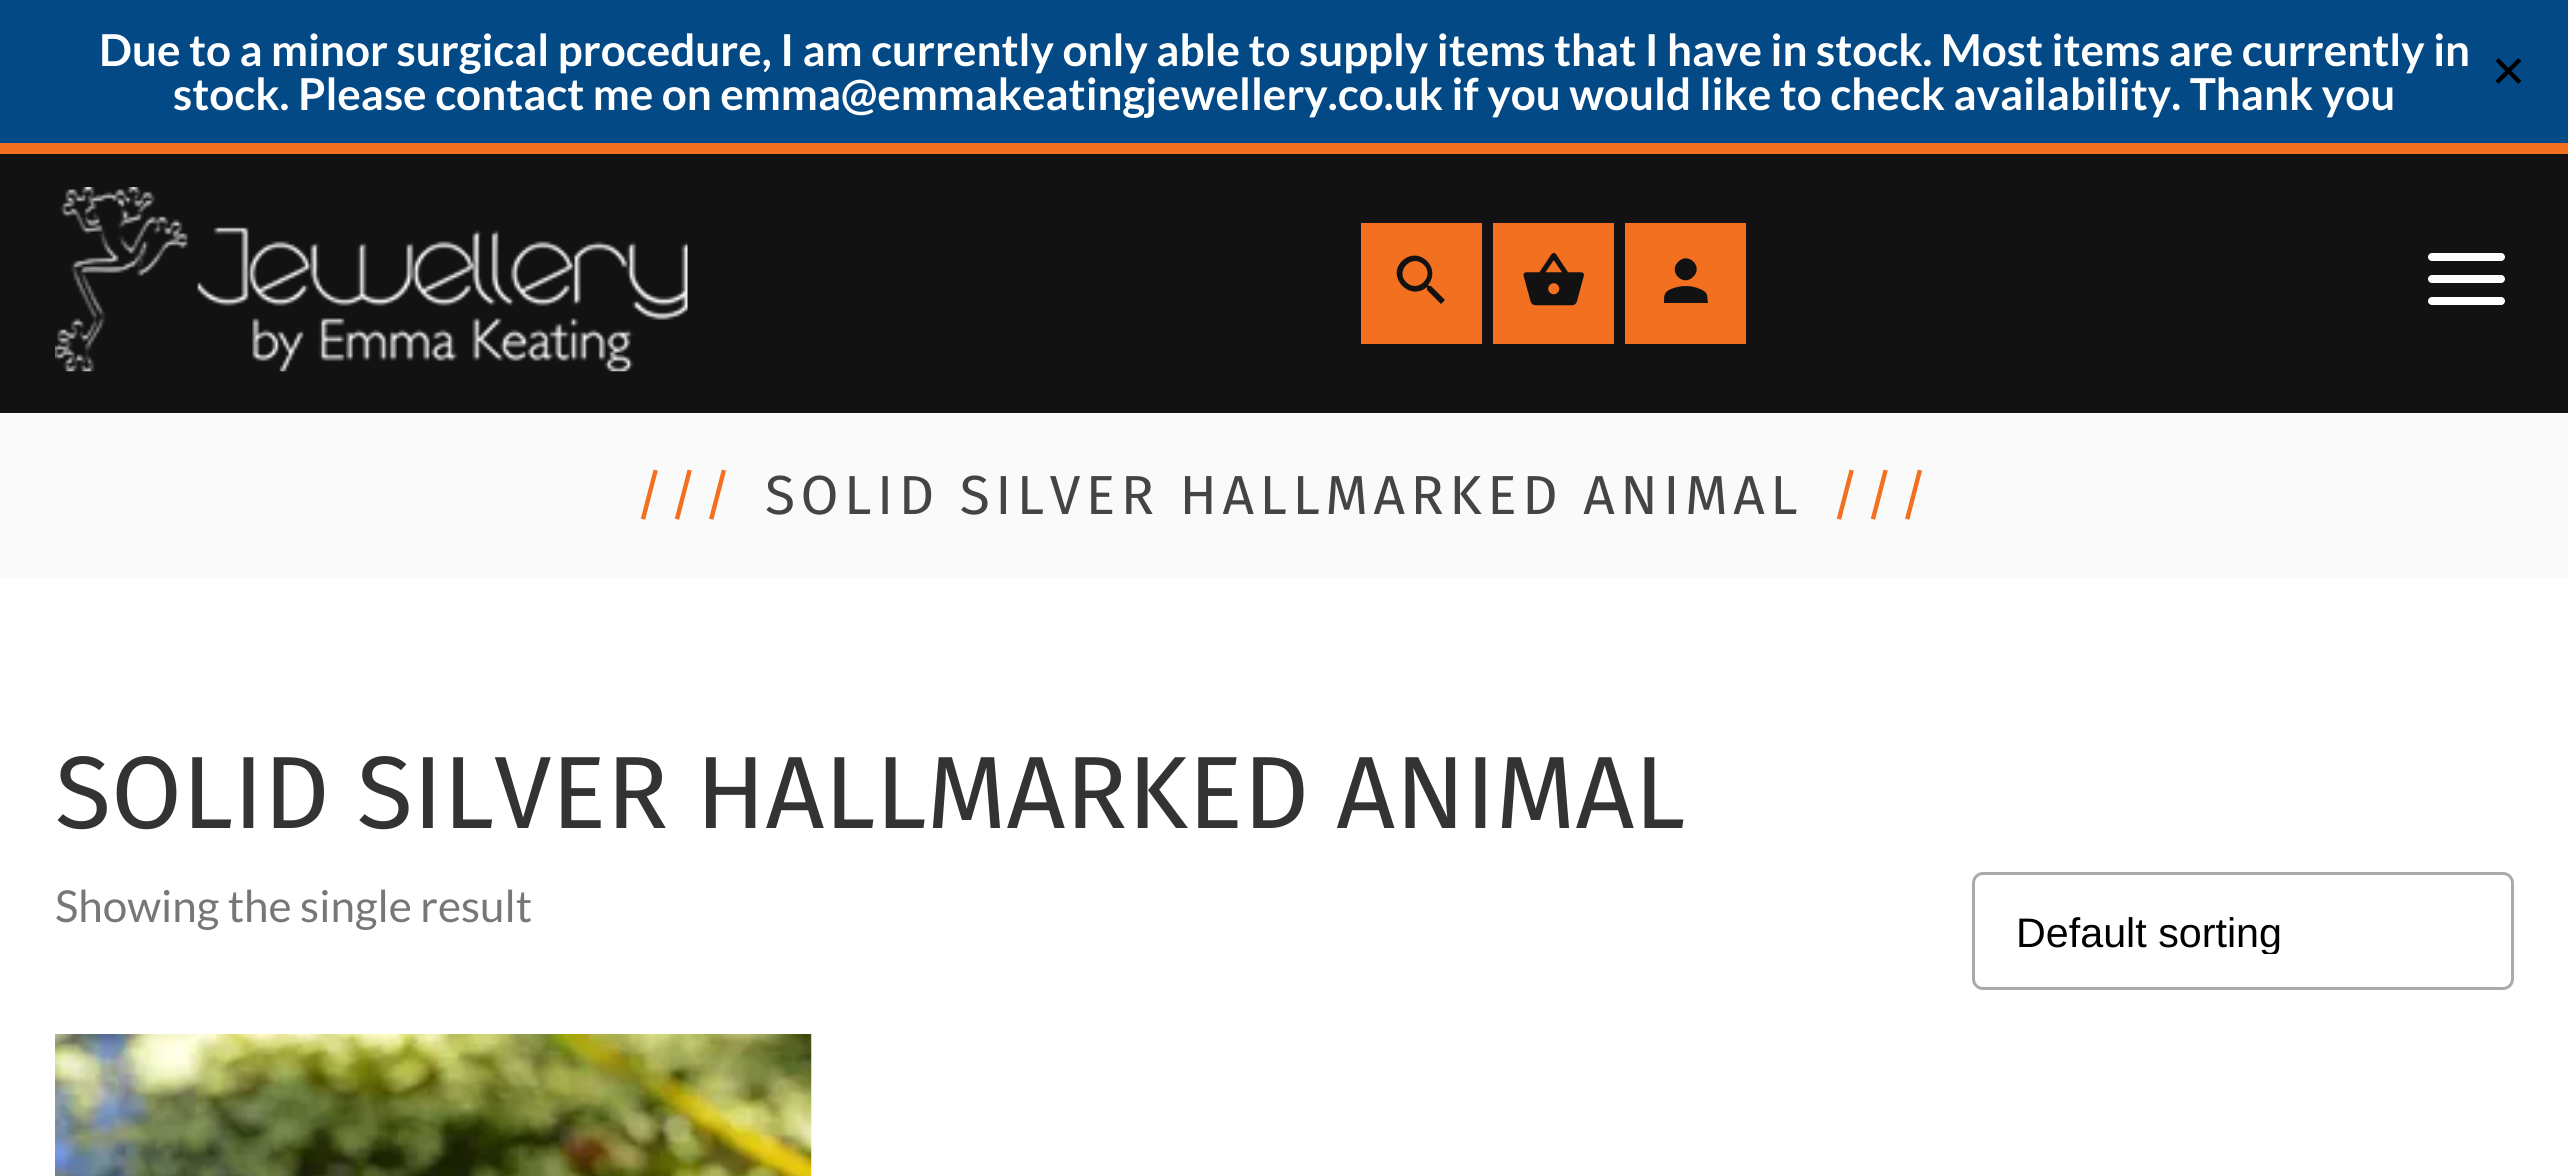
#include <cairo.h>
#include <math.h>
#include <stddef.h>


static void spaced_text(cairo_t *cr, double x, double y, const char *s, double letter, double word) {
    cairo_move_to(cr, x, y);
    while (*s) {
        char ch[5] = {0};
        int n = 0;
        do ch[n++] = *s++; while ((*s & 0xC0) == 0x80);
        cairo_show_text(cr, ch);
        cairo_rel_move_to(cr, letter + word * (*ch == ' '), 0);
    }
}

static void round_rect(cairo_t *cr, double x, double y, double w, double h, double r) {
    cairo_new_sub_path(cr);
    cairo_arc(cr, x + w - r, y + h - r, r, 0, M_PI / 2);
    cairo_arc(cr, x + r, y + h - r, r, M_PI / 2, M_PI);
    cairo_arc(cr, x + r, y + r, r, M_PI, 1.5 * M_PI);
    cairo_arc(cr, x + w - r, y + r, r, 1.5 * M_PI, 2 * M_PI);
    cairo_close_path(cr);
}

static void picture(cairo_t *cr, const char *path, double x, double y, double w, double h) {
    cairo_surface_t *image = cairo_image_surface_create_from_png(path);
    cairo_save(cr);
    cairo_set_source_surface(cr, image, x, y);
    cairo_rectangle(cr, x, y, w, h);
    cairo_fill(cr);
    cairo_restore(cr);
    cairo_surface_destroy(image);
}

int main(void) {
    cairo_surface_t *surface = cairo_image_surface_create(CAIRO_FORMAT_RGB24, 2568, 1176);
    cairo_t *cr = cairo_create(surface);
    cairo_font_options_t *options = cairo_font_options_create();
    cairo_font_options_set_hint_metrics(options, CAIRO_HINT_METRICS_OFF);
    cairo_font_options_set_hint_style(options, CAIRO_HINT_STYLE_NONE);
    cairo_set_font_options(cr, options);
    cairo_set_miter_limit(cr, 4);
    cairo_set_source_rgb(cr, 1, 1, 1);
    cairo_paint(cr);
    cairo_set_source_rgb(cr, 0.008, 0.286, 0.522);
    cairo_rectangle(cr, 0, 0, 2568, 143);
    cairo_fill(cr);
    cairo_select_font_face(cr, "Lato", CAIRO_FONT_SLANT_NORMAL, CAIRO_FONT_WEIGHT_BOLD);
    cairo_set_font_size(cr, 44);
    cairo_set_source_rgb(cr, 1, 1, 1);
    cairo_move_to(cr, 99, 66);
    cairo_show_text(cr, "Due to a minor surgical procedure, I am currently only able to supply items that I have in stock. Most items are currently in");
    cairo_move_to(cr, 173, 110);
    cairo_show_text(cr, "stock. Please contact me on emma@emmakeatingjewellery.co.uk if you would like to check availability. Thank you");
    cairo_select_font_face(cr, "DejaVu Sans", CAIRO_FONT_SLANT_NORMAL, CAIRO_FONT_WEIGHT_NORMAL);
    cairo_set_source_rgb(cr, 0, 0, 0);
    cairo_move_to(cr, 2490, 87);
    cairo_show_text(cr, "✕");
    cairo_set_source_rgb(cr, 0.071, 0.071, 0.071);
    cairo_rectangle(cr, 0, 154, 2568, 259);
    cairo_fill(cr);
    cairo_set_source_rgb(cr, 0.953, 0.439, 0.129);
    cairo_rectangle(cr, 0, 143, 2568, 11);
    cairo_fill(cr);
    picture(cr, "img1.png", 55, 187, 633, 185);
    cairo_rectangle(cr, 1361, 223, 121, 121);
    cairo_fill(cr);
    cairo_set_source_rgb(cr, 0.071, 0.071, 0.071);
    cairo_new_path(cr);
    cairo_move_to(cr, 1406, 282);
    cairo_curve_to(cr, 1418, 294, 1435, 276, 1424, 265);
    cairo_curve_to(cr, 1412, 253, 1395, 271, 1406, 282);
    cairo_close_path(cr);
    cairo_move_to(cr, 1431, 286);
    cairo_line_to(cr, 1445, 300);
    cairo_line_to(cr, 1441, 304);
    cairo_line_to(cr, 1427, 290);
    cairo_line_to(cr, 1427, 288);
    cairo_line_to(cr, 1427, 287);
    cairo_curve_to(cr, 1410, 302, 1386, 277, 1402, 261);
    cairo_curve_to(cr, 1419, 245, 1442, 268, 1428, 285);
    cairo_line_to(cr, 1429, 286);
    cairo_close_path(cr);
    cairo_fill(cr);
    cairo_set_source_rgb(cr, 0.953, 0.439, 0.129);
    cairo_rectangle(cr, 1493, 223, 121, 121);
    cairo_fill(cr);
    picture(cr, "img2.png", 1523, 253, 61, 53);
    cairo_rectangle(cr, 1625, 223, 121, 121);
    cairo_fill(cr);
    cairo_set_source_rgb(cr, 0.071, 0.071, 0.071);
    cairo_new_path(cr);
    cairo_move_to(cr, 1671, 289);
    cairo_curve_to(cr, 1681, 285, 1691, 285, 1700, 289);
    cairo_curve_to(cr, 1703, 290, 1706, 292, 1707, 295);
    cairo_line_to(cr, 1708, 303);
    cairo_line_to(cr, 1664, 303);
    cairo_curve_to(cr, 1664, 295, 1664, 292, 1671, 289);
    cairo_close_path(cr);
    cairo_move_to(cr, 1693, 277);
    cairo_curve_to(cr, 1683, 287, 1668, 272, 1678, 262);
    cairo_curve_to(cr, 1688, 251, 1704, 267, 1693, 277);
    cairo_close_path(cr);
    cairo_fill(cr);
    cairo_set_source_rgb(cr, 1, 1, 1);
    round_rect(cr, 2428, 253, 77, 8, 4);
    cairo_fill(cr);
    round_rect(cr, 2428, 275, 77, 8, 4);
    cairo_fill(cr);
    round_rect(cr, 2428, 297, 77, 8, 4);
    cairo_fill(cr);
    cairo_set_source_rgb(cr, 0.98, 0.98, 0.98);
    cairo_rectangle(cr, 0, 413, 2568, 165);
    cairo_fill(cr);
    cairo_select_font_face(cr, "Fira Sans", CAIRO_FONT_SLANT_NORMAL, CAIRO_FONT_WEIGHT_NORMAL);
    cairo_set_font_size(cr, 55);
    cairo_set_source_rgb(cr, 0.953, 0.439, 0.129);
    spaced_text(cr, 635, 514, "///", 5.5, 0);
    cairo_set_source_rgb(cr, 0.267, 0.267, 0.267);
    spaced_text(cr, 765, 514, "SOLID SILVER HALLMARKED ANIMAL", 5.5, 0);
    cairo_set_source_rgb(cr, 0.953, 0.439, 0.129);
    spaced_text(cr, 1831, 514, "///", 5.5, 0);
    cairo_set_font_size(cr, 102.7);
    cairo_set_source_rgb(cr, 0.2, 0.2, 0.2);
    cairo_move_to(cr, 55, 828);
    cairo_show_text(cr, "SOLID SILVER HALLMARKED ANIMAL");
    cairo_select_font_face(cr, "Lato", CAIRO_FONT_SLANT_NORMAL, CAIRO_FONT_WEIGHT_NORMAL);
    cairo_set_font_size(cr, 44);
    cairo_set_source_rgb(cr, 0.467, 0.467, 0.467);
    cairo_move_to(cr, 55, 922);
    cairo_show_text(cr, "Showing the single result");
    round_rect(cr, 1973.5, 873.5, 539, 115, 9.5);
    cairo_set_source_rgb(cr, 0.667, 0.667, 0.667);
    cairo_set_line_width(cr, 3);
    cairo_stroke(cr);
    cairo_save(cr);
    cairo_rectangle(cr, 2016, 908, 454, 46);
    cairo_clip(cr);
    cairo_select_font_face(cr, "Liberation Sans", CAIRO_FONT_SLANT_NORMAL, CAIRO_FONT_WEIGHT_NORMAL);
    cairo_set_font_size(cr, 41.25);
    cairo_set_source_rgb(cr, 0, 0, 0);
    cairo_move_to(cr, 2016, 947);
    cairo_show_text(cr, "Default sorting");
    cairo_restore(cr);
    picture(cr, "img3.png", 55, 1034, 757, 142);
    cairo_surface_write_to_png(surface, "page.png");
    cairo_font_options_destroy(options);
    cairo_destroy(cr);
    cairo_surface_destroy(surface);
    return 0;
}
